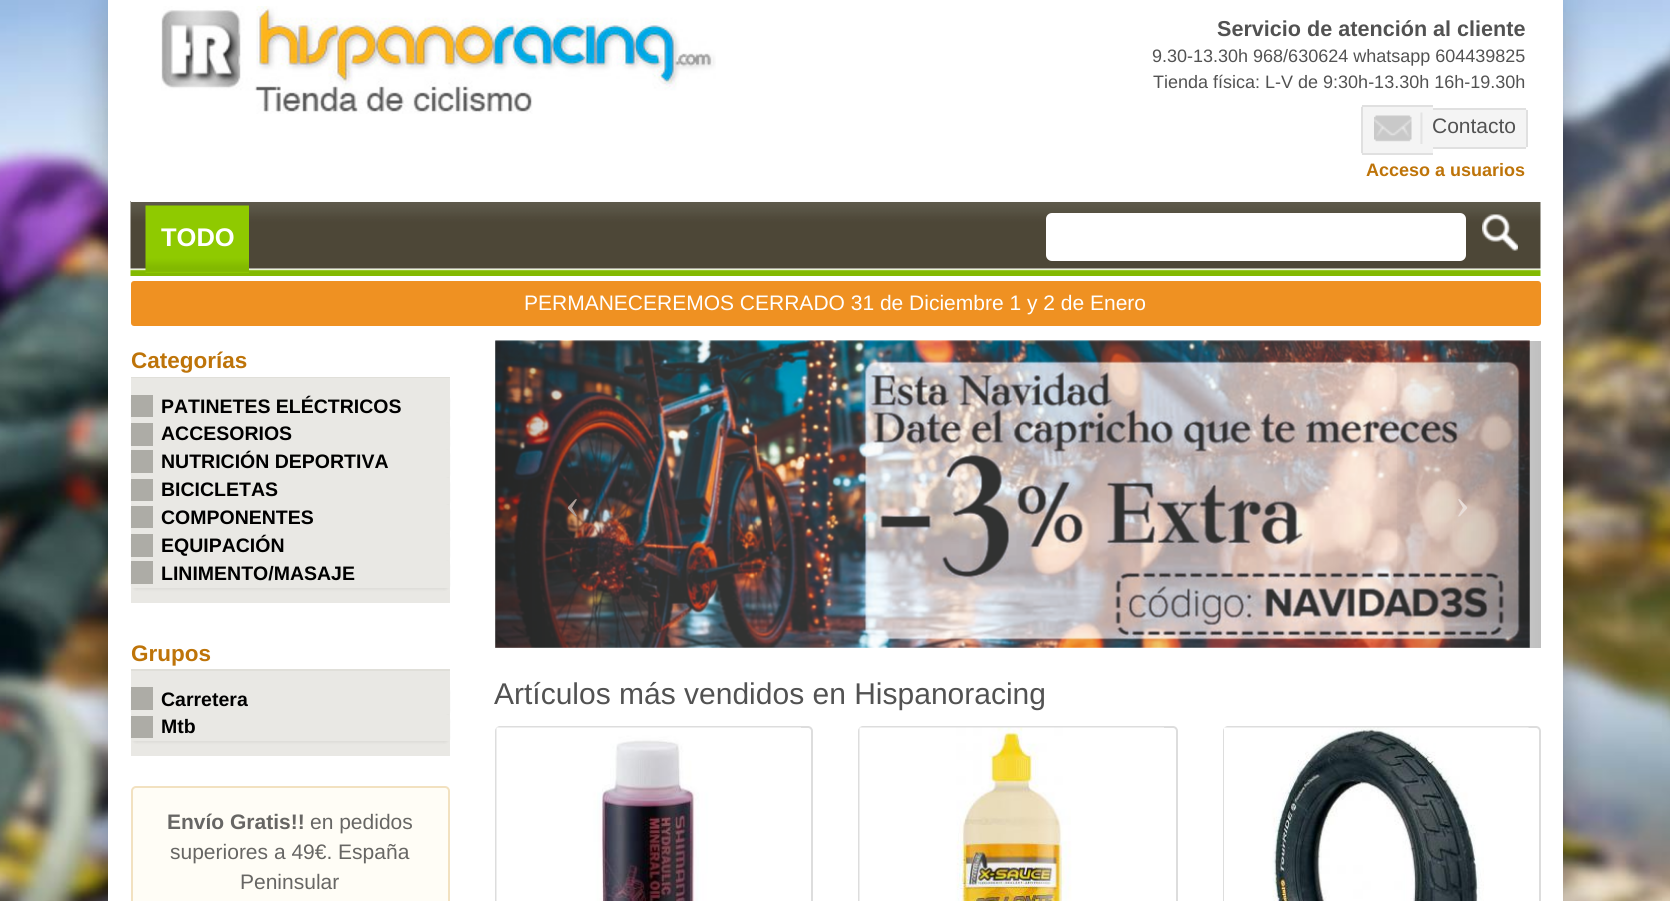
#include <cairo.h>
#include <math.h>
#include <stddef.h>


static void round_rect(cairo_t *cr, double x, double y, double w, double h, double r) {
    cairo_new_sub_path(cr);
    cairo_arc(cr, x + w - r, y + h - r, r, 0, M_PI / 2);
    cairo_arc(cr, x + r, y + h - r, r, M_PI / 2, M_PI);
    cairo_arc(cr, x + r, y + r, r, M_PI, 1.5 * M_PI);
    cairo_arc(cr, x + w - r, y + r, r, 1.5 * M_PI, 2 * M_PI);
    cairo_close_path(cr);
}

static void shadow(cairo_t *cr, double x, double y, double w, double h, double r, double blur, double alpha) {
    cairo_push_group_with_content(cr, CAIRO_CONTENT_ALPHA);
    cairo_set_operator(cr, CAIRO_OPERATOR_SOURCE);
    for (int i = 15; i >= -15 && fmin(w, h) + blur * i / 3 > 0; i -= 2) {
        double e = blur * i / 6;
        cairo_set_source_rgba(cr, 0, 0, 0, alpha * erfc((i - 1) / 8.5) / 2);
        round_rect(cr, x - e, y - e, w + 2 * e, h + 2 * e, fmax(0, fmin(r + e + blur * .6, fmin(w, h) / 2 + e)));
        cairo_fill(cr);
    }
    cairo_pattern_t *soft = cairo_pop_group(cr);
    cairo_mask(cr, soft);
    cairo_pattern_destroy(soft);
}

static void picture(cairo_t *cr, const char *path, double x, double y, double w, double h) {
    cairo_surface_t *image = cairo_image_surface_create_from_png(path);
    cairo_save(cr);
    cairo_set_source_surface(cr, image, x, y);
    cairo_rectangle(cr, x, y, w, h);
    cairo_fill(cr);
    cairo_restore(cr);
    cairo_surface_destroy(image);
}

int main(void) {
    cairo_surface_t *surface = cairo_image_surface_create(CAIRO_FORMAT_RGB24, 1670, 901);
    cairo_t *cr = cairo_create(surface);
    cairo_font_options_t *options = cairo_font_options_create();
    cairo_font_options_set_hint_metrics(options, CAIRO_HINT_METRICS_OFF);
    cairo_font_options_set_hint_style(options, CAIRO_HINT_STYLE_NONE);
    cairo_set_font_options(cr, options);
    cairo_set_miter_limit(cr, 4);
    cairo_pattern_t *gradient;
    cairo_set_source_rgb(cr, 1, 1, 1);
    cairo_paint(cr);
    picture(cr, "img1.png", 0, 0, 1670, 901);
    cairo_set_source_rgb(cr, 1, 1, 1);
    cairo_rectangle(cr, 108, 0, 1455, 901);
    cairo_fill(cr);
    picture(cr, "img2.png", 161, 6, 555, 108);
    cairo_select_font_face(cr, "Liberation Sans", CAIRO_FONT_SLANT_NORMAL, CAIRO_FONT_WEIGHT_BOLD);
    cairo_set_font_size(cr, 21.6);
    cairo_set_source_rgb(cr, 0.322, 0.322, 0.322);
    cairo_move_to(cr, 1217, 36);
    cairo_show_text(cr, "Servicio de atención al cliente");
    cairo_select_font_face(cr, "Liberation Sans", CAIRO_FONT_SLANT_NORMAL, CAIRO_FONT_WEIGHT_NORMAL);
    cairo_set_font_size(cr, 18);
    cairo_move_to(cr, 1152, 62);
    cairo_show_text(cr, "9.30-13.30h 968/630624 whatsapp 604439825");
    cairo_move_to(cr, 1153, 88);
    cairo_show_text(cr, "Tienda física: L-V de 9:30h-13.30h 16h-19.30h");
    cairo_set_source_rgb(cr, 0.957, 0.957, 0.957);
    cairo_new_path(cr);
    cairo_move_to(cr, 1364, 105);
    cairo_line_to(cr, 1433, 105);
    cairo_line_to(cr, 1433, 155);
    cairo_line_to(cr, 1364, 155);
    cairo_curve_to(cr, 1362.5, 155, 1361, 153.5, 1361, 152);
    cairo_line_to(cr, 1361, 108);
    cairo_curve_to(cr, 1361, 106.5, 1362.5, 105, 1364, 105);
    cairo_close_path(cr);
    cairo_fill(cr);
    picture(cr, "img3.png", 1374, 112, 49, 32);
    cairo_new_path(cr);
    cairo_move_to(cr, 1433, 108);
    cairo_line_to(cr, 1524, 108);
    cairo_curve_to(cr, 1525.5, 108, 1527, 109.5, 1527, 111);
    cairo_line_to(cr, 1527, 146);
    cairo_curve_to(cr, 1527, 147.5, 1525.5, 149, 1524, 149);
    cairo_line_to(cr, 1433, 149);
    cairo_close_path(cr);
    cairo_fill(cr);
    cairo_set_font_size(cr, 21);
    cairo_set_source_rgb(cr, 0.322, 0.322, 0.322);
    cairo_move_to(cr, 1432, 133);
    cairo_show_text(cr, "Contacto");
    cairo_set_source_rgb(cr, 0.878, 0.878, 0.878);
    cairo_rectangle(cr, 1362, 105, 71, 2);
    cairo_fill(cr);
    cairo_rectangle(cr, 1362, 153, 71, 2);
    cairo_fill(cr);
    cairo_rectangle(cr, 1361, 107, 2, 46);
    cairo_fill(cr);
    cairo_rectangle(cr, 1433, 108, 93, 2);
    cairo_fill(cr);
    cairo_rectangle(cr, 1526, 110, 2, 37);
    cairo_fill(cr);
    cairo_rectangle(cr, 1433, 147, 93, 2);
    cairo_fill(cr);
    cairo_select_font_face(cr, "Liberation Sans", CAIRO_FONT_SLANT_NORMAL, CAIRO_FONT_WEIGHT_BOLD);
    cairo_set_font_size(cr, 18);
    cairo_set_source_rgb(cr, 0.745, 0.455, 0.039);
    cairo_move_to(cr, 1366, 176);
    cairo_show_text(cr, "Acceso a usuarios");
    picture(cr, "img4.png", 130, 201, 1411, 75);
    cairo_set_source_rgb(cr, 1, 1, 1);
    cairo_rectangle(cr, 131, 201, 1410, 1);
    cairo_fill(cr);
    picture(cr, "img5.png", 145, 205, 104, 68);
    cairo_set_font_size(cr, 25.5);
    cairo_move_to(cr, 161, 246);
    cairo_show_text(cr, "TODO");
    round_rect(cr, 1047, 214, 418, 46, 5);
    cairo_fill_preserve(cr);
    cairo_stroke(cr);
    picture(cr, "img6.png", 1482, 214, 36, 37);
    cairo_set_source_rgb(cr, 0.937, 0.569, 0.133);
    round_rect(cr, 131, 281, 1410, 45, 3);
    cairo_fill(cr);
    cairo_select_font_face(cr, "Liberation Sans", CAIRO_FONT_SLANT_NORMAL, CAIRO_FONT_WEIGHT_NORMAL);
    cairo_set_font_size(cr, 21);
    cairo_set_source_rgb(cr, 1, 1, 1);
    cairo_move_to(cr, 524, 310);
    cairo_show_text(cr, "PERMANECEREMOS CERRADO 31 de Diciembre 1 y 2 de Enero");
    cairo_set_source_rgb(cr, 0.878, 0.875, 0.851);
    cairo_rectangle(cr, 131, 377, 319, 1);
    cairo_fill(cr);
    cairo_select_font_face(cr, "Liberation Sans", CAIRO_FONT_SLANT_NORMAL, CAIRO_FONT_WEIGHT_BOLD);
    cairo_set_font_size(cr, 22.5);
    cairo_set_source_rgb(cr, 0.745, 0.455, 0.039);
    cairo_move_to(cr, 131, 368);
    cairo_show_text(cr, "Categorías");
    cairo_set_source_rgb(cr, 0.914, 0.91, 0.894);
    cairo_rectangle(cr, 131, 378, 319, 225);
    cairo_fill(cr);
    cairo_set_source_rgb(cr, 0, 0, 0);
    shadow(cr, 131, 395, 319, 28, 6, 1, 0.05);
    cairo_set_source_rgb(cr, 0.914, 0.91, 0.894);
    cairo_new_path(cr);
    cairo_move_to(cr, 136, 393);
    cairo_line_to(cr, 445, 393);
    cairo_curve_to(cr, 448, 393, 450, 395, 450, 398);
    cairo_line_to(cr, 450, 422);
    cairo_line_to(cr, 131, 422);
    cairo_line_to(cr, 131, 398);
    cairo_curve_to(cr, 131, 395, 133, 393, 136, 393);
    cairo_close_path(cr);
    cairo_fill(cr);
    cairo_set_font_size(cr, 19.5);
    cairo_set_source_rgb(cr, 0, 0, 0);
    cairo_move_to(cr, 161, 413);
    cairo_show_text(cr, "PATINETES ELÉCTRICOS");
    cairo_set_source_rgb(cr, 0.678, 0.675, 0.651);
    cairo_rectangle(cr, 131, 395, 22, 22);
    cairo_fill(cr);
    cairo_set_source_rgb(cr, 0, 0, 0);
    shadow(cr, 131, 423, 319, 27, 6, 1, 0.05);
    cairo_set_source_rgb(cr, 0.914, 0.91, 0.894);
    cairo_new_path(cr);
    cairo_move_to(cr, 136, 422);
    cairo_line_to(cr, 445, 422);
    cairo_curve_to(cr, 448, 422, 450, 424, 450, 427);
    cairo_line_to(cr, 450, 449);
    cairo_line_to(cr, 131, 449);
    cairo_line_to(cr, 131, 427);
    cairo_curve_to(cr, 131, 424, 133, 422, 136, 422);
    cairo_close_path(cr);
    cairo_fill(cr);
    cairo_set_source_rgb(cr, 0, 0, 0);
    cairo_move_to(cr, 161, 440);
    cairo_show_text(cr, "ACCESORIOS");
    cairo_set_source_rgb(cr, 0.678, 0.675, 0.651);
    cairo_rectangle(cr, 131, 423, 22, 23);
    cairo_fill(cr);
    cairo_set_source_rgb(cr, 0, 0, 0);
    shadow(cr, 131, 450, 319, 29, 6, 1, 0.05);
    cairo_set_source_rgb(cr, 0.914, 0.91, 0.894);
    cairo_new_path(cr);
    cairo_move_to(cr, 136, 449);
    cairo_line_to(cr, 445, 449);
    cairo_curve_to(cr, 448, 449, 450, 451, 450, 454);
    cairo_line_to(cr, 450, 477);
    cairo_line_to(cr, 131, 477);
    cairo_line_to(cr, 131, 454);
    cairo_curve_to(cr, 131, 451, 133, 449, 136, 449);
    cairo_close_path(cr);
    cairo_fill(cr);
    cairo_set_source_rgb(cr, 0, 0, 0);
    cairo_move_to(cr, 161, 468);
    cairo_show_text(cr, "NUTRICIÓN DEPORTIVA");
    cairo_set_source_rgb(cr, 0.678, 0.675, 0.651);
    cairo_rectangle(cr, 131, 450, 22, 23);
    cairo_fill(cr);
    cairo_set_source_rgb(cr, 0, 0, 0);
    shadow(cr, 131, 479, 319, 27, 6, 1, 0.05);
    cairo_set_source_rgb(cr, 0.914, 0.91, 0.894);
    cairo_new_path(cr);
    cairo_move_to(cr, 136, 477);
    cairo_line_to(cr, 445, 477);
    cairo_curve_to(cr, 448, 477, 450, 479, 450, 482);
    cairo_line_to(cr, 450, 504);
    cairo_line_to(cr, 131, 504);
    cairo_line_to(cr, 131, 482);
    cairo_curve_to(cr, 131, 479, 133, 477, 136, 477);
    cairo_close_path(cr);
    cairo_fill(cr);
    cairo_set_source_rgb(cr, 0, 0, 0);
    cairo_move_to(cr, 161, 496);
    cairo_show_text(cr, "BICICLETAS");
    cairo_set_source_rgb(cr, 0.678, 0.675, 0.651);
    cairo_rectangle(cr, 131, 479, 22, 22);
    cairo_fill(cr);
    cairo_set_source_rgb(cr, 0, 0, 0);
    shadow(cr, 131, 506, 319, 28, 6, 1, 0.05);
    cairo_set_source_rgb(cr, 0.914, 0.91, 0.894);
    cairo_new_path(cr);
    cairo_move_to(cr, 136, 504);
    cairo_line_to(cr, 445, 504);
    cairo_curve_to(cr, 448, 504, 450, 506, 450, 509);
    cairo_line_to(cr, 450, 533);
    cairo_line_to(cr, 131, 533);
    cairo_line_to(cr, 131, 509);
    cairo_curve_to(cr, 131, 506, 133, 504, 136, 504);
    cairo_close_path(cr);
    cairo_fill(cr);
    cairo_set_source_rgb(cr, 0, 0, 0);
    cairo_move_to(cr, 161, 524);
    cairo_show_text(cr, "COMPONENTES");
    cairo_set_source_rgb(cr, 0.678, 0.675, 0.651);
    cairo_rectangle(cr, 131, 506, 22, 22);
    cairo_fill(cr);
    cairo_set_source_rgb(cr, 0, 0, 0);
    shadow(cr, 131, 534, 319, 27, 6, 1, 0.05);
    cairo_set_source_rgb(cr, 0.914, 0.91, 0.894);
    cairo_new_path(cr);
    cairo_move_to(cr, 136, 533);
    cairo_line_to(cr, 445, 533);
    cairo_curve_to(cr, 448, 533, 450, 535, 450, 538);
    cairo_line_to(cr, 450, 560);
    cairo_line_to(cr, 131, 560);
    cairo_line_to(cr, 131, 538);
    cairo_curve_to(cr, 131, 535, 133, 533, 136, 533);
    cairo_close_path(cr);
    cairo_fill(cr);
    cairo_set_source_rgb(cr, 0, 0, 0);
    cairo_move_to(cr, 161, 552);
    cairo_show_text(cr, "EQUIPACIÓN");
    cairo_set_source_rgb(cr, 0.678, 0.675, 0.651);
    cairo_rectangle(cr, 131, 534, 22, 23);
    cairo_fill(cr);
    cairo_set_source_rgb(cr, 0, 0, 0);
    shadow(cr, 131, 561, 319, 29, 6, 1, 0.05);
    cairo_set_source_rgb(cr, 0.914, 0.91, 0.894);
    cairo_new_path(cr);
    cairo_move_to(cr, 136, 560);
    cairo_line_to(cr, 445, 560);
    cairo_curve_to(cr, 448, 560, 450, 562, 450, 565);
    cairo_line_to(cr, 450, 588);
    cairo_line_to(cr, 131, 588);
    cairo_line_to(cr, 131, 565);
    cairo_curve_to(cr, 131, 562, 133, 560, 136, 560);
    cairo_close_path(cr);
    cairo_fill(cr);
    cairo_set_source_rgb(cr, 0, 0, 0);
    cairo_move_to(cr, 161, 580);
    cairo_show_text(cr, "LINIMENTO/MASAJE");
    cairo_set_source_rgb(cr, 0.678, 0.675, 0.651);
    cairo_rectangle(cr, 131, 561, 22, 23);
    cairo_fill(cr);
    cairo_set_source_rgb(cr, 0.878, 0.875, 0.851);
    cairo_rectangle(cr, 131, 669, 319, 2);
    cairo_fill(cr);
    cairo_set_font_size(cr, 22.5);
    cairo_set_source_rgb(cr, 0.745, 0.455, 0.039);
    cairo_move_to(cr, 131, 661);
    cairo_show_text(cr, "Grupos");
    cairo_set_source_rgb(cr, 0.914, 0.91, 0.894);
    cairo_rectangle(cr, 131, 671, 319, 85);
    cairo_fill(cr);
    cairo_set_source_rgb(cr, 0, 0, 0);
    shadow(cr, 131, 687, 319, 29, 6, 1, 0.05);
    cairo_set_source_rgb(cr, 0.914, 0.91, 0.894);
    cairo_new_path(cr);
    cairo_move_to(cr, 136, 686);
    cairo_line_to(cr, 445, 686);
    cairo_curve_to(cr, 448, 686, 450, 688, 450, 691);
    cairo_line_to(cr, 450, 714);
    cairo_line_to(cr, 131, 714);
    cairo_line_to(cr, 131, 691);
    cairo_curve_to(cr, 131, 688, 133, 686, 136, 686);
    cairo_close_path(cr);
    cairo_fill(cr);
    cairo_set_font_size(cr, 19.5);
    cairo_set_source_rgb(cr, 0, 0, 0);
    cairo_move_to(cr, 161, 706);
    cairo_show_text(cr, "Carretera");
    cairo_set_source_rgb(cr, 0.678, 0.675, 0.651);
    cairo_rectangle(cr, 131, 687, 22, 23);
    cairo_fill(cr);
    cairo_set_source_rgb(cr, 0, 0, 0);
    shadow(cr, 131, 716, 319, 27, 6, 1, 0.05);
    cairo_set_source_rgb(cr, 0.914, 0.91, 0.894);
    cairo_new_path(cr);
    cairo_move_to(cr, 136, 714);
    cairo_line_to(cr, 445, 714);
    cairo_curve_to(cr, 448, 714, 450, 716, 450, 719);
    cairo_line_to(cr, 450, 741);
    cairo_line_to(cr, 131, 741);
    cairo_line_to(cr, 131, 719);
    cairo_curve_to(cr, 131, 716, 133, 714, 136, 714);
    cairo_close_path(cr);
    cairo_fill(cr);
    cairo_set_source_rgb(cr, 0, 0, 0);
    cairo_move_to(cr, 161, 733);
    cairo_show_text(cr, "Mtb");
    cairo_set_source_rgb(cr, 0.678, 0.675, 0.651);
    cairo_rectangle(cr, 131, 716, 22, 22);
    cairo_fill(cr);
    cairo_set_source_rgb(cr, 1, 0.992, 0.961);
    round_rect(cr, 132, 787, 317, 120, 4);
    cairo_fill_preserve(cr);
    cairo_set_source_rgb(cr, 0.949, 0.882, 0.753);
    cairo_stroke(cr);
    cairo_set_font_size(cr, 21);
    cairo_set_source_rgb(cr, 0.404, 0.4, 0.392);
    cairo_move_to(cr, 167, 829);
    cairo_show_text(cr, "Envío Gratis!!");
    cairo_select_font_face(cr, "Liberation Sans", CAIRO_FONT_SLANT_NORMAL, CAIRO_FONT_WEIGHT_NORMAL);
    cairo_move_to(cr, 310, 829);
    cairo_show_text(cr, "en pedidos");
    cairo_move_to(cr, 170, 859);
    cairo_show_text(cr, "superiores a 49€. España");
    cairo_move_to(cr, 240, 889);
    cairo_show_text(cr, "Peninsular");
    picture(cr, "img7.png", 495, 340, 1035, 308);
    gradient = cairo_pattern_create_linear(495, 494, 651, 494);
    cairo_pattern_add_color_stop_rgba(gradient, 0, 0, 0, 0, 0.25);
    cairo_pattern_add_color_stop_rgba(gradient, 1, 0, 0, 0, 0);
    cairo_set_source(cr, gradient);
    cairo_pattern_destroy(gradient);
    cairo_rectangle(cr, 495, 341, 143, 307);
    cairo_fill(cr);
    cairo_select_font_face(cr, "Liberation Serif", CAIRO_FONT_SLANT_NORMAL, CAIRO_FONT_WEIGHT_NORMAL);
    cairo_set_font_size(cr, 45);
    cairo_set_source_rgb(cr, 0.671, 0.612, 0.588);
    cairo_move_to(cr, 565, 518);
    cairo_show_text(cr, "‹");
    gradient = cairo_pattern_create_linear(1383, 494, 1541, 494);
    cairo_pattern_add_color_stop_rgba(gradient, 0, 0, 0, 0, 0);
    cairo_pattern_add_color_stop_rgba(gradient, 1, 0, 0, 0, 0.25);
    cairo_set_source(cr, gradient);
    cairo_pattern_destroy(gradient);
    cairo_rectangle(cr, 1397, 341, 144, 307);
    cairo_fill(cr);
    cairo_set_source_rgb(cr, 0.91, 0.867, 0.847);
    cairo_move_to(cr, 1455, 518);
    cairo_show_text(cr, "›");
    cairo_select_font_face(cr, "Liberation Sans", CAIRO_FONT_SLANT_NORMAL, CAIRO_FONT_WEIGHT_NORMAL);
    cairo_set_font_size(cr, 30);
    cairo_set_source_rgb(cr, 0.322, 0.322, 0.322);
    cairo_move_to(cr, 494, 704);
    cairo_show_text(cr, "Artículos más vendidos en Hispanoracing");
    round_rect(cr, 496, 727, 316, 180, 4);
    cairo_set_source_rgb(cr, 0.867, 0.867, 0.867);
    cairo_stroke(cr);
    picture(cr, "img8.png", 496, 727, 305, 174);
    round_rect(cr, 859, 727, 318, 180, 4);
    cairo_stroke(cr);
    picture(cr, "img9.png", 859, 727, 305, 174);
    round_rect(cr, 1224, 727, 316, 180, 4);
    cairo_stroke(cr);
    picture(cr, "img10.png", 1224, 727, 305, 174);
    cairo_surface_write_to_png(surface, "page.png");
    cairo_font_options_destroy(options);
    cairo_destroy(cr);
    cairo_surface_destroy(surface);
    return 0;
}
